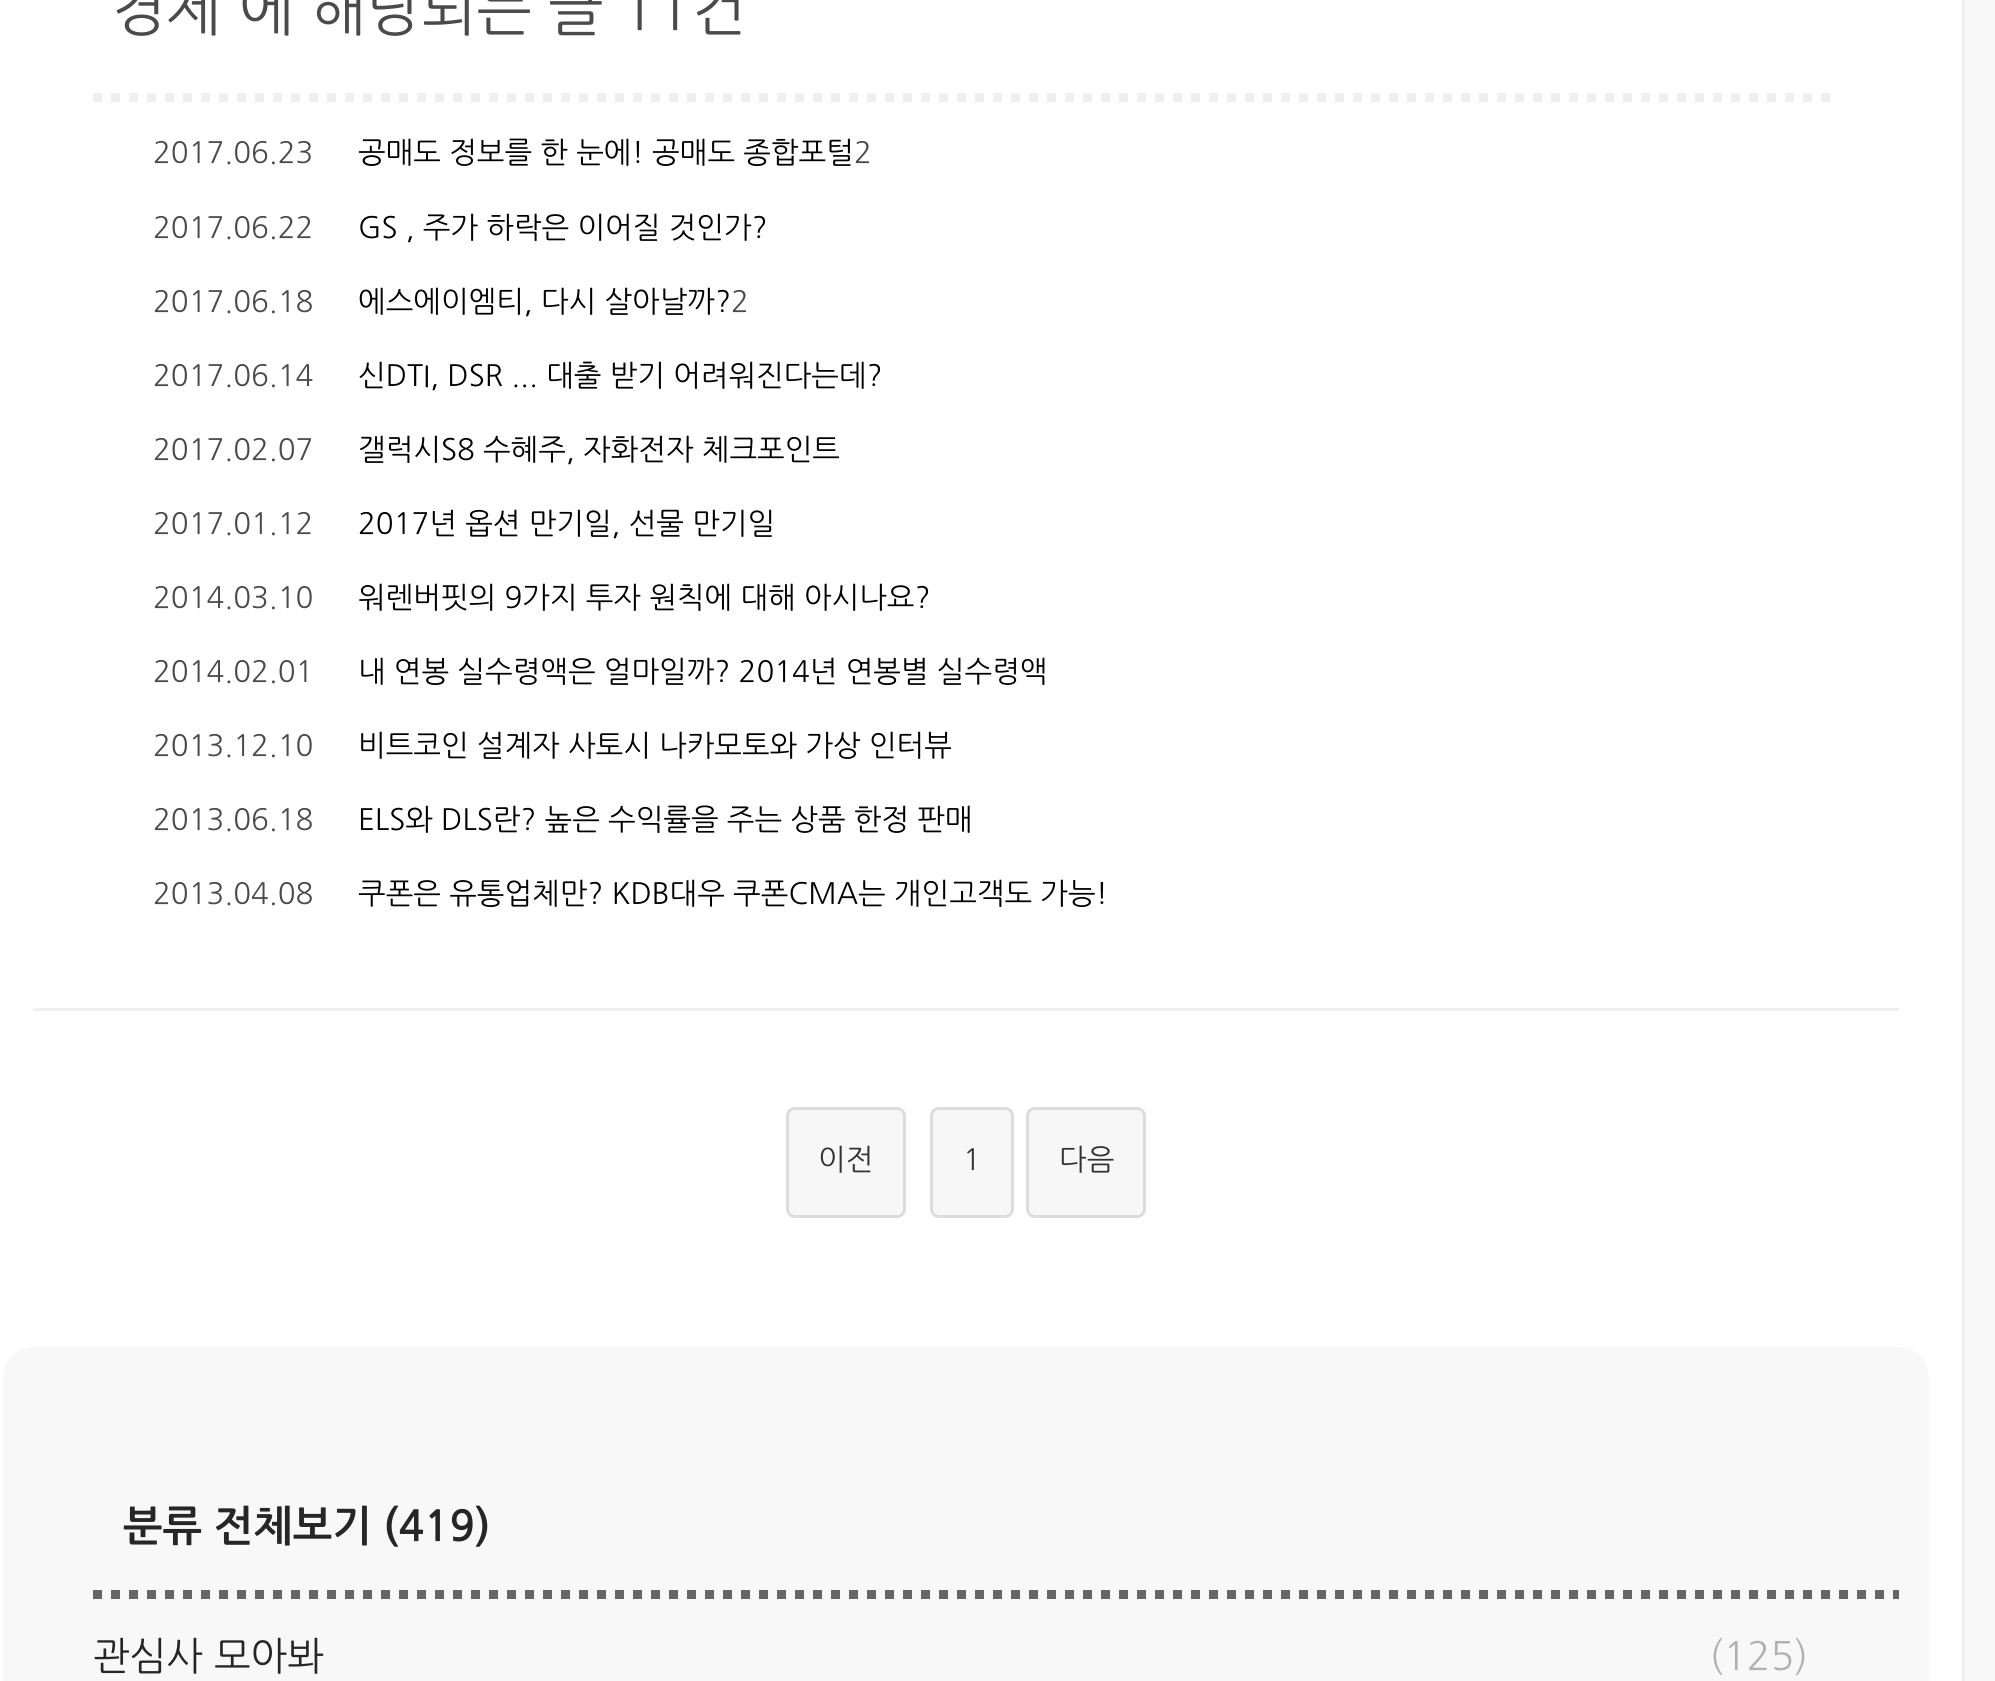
#include <cairo.h>
#include <math.h>
#include <stddef.h>


static void round_rect(cairo_t *cr, double x, double y, double w, double h, double r) {
    cairo_new_sub_path(cr);
    cairo_arc(cr, x + w - r, y + h - r, r, 0, M_PI / 2);
    cairo_arc(cr, x + r, y + h - r, r, M_PI / 2, M_PI);
    cairo_arc(cr, x + r, y + r, r, M_PI, 1.5 * M_PI);
    cairo_arc(cr, x + w - r, y + r, r, 1.5 * M_PI, 2 * M_PI);
    cairo_close_path(cr);
}

int main(void) {
    cairo_surface_t *surface = cairo_image_surface_create(CAIRO_FORMAT_RGB24, 1995, 1681);
    cairo_t *cr = cairo_create(surface);
    cairo_font_options_t *options = cairo_font_options_create();
    cairo_font_options_set_hint_metrics(options, CAIRO_HINT_METRICS_OFF);
    cairo_font_options_set_hint_style(options, CAIRO_HINT_STYLE_NONE);
    cairo_set_font_options(cr, options);
    cairo_set_miter_limit(cr, 4);
    cairo_set_source_rgb(cr, 0.969, 0.969, 0.969);
    cairo_paint(cr);
    cairo_set_source_rgb(cr, 1, 1, 1);
    cairo_rectangle(cr, -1.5, -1.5, 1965, 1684);
    cairo_fill_preserve(cr);
    cairo_set_source_rgb(cr, 0.937, 0.937, 0.937);
    cairo_set_line_width(cr, 3);
    cairo_stroke(cr);
    cairo_rectangle(cr, 33, 1008, 1866, 3);
    cairo_fill(cr);
    cairo_new_path(cr);
    cairo_move_to(cr, 93, 97.5);
    cairo_line_to(cr, 1839, 97.5);
    cairo_set_line_width(cr, 9);
    cairo_set_dash(cr, (double[]){9, 9}, 2, 0);
    cairo_stroke(cr);
    cairo_select_font_face(cr, "NanumGothic", CAIRO_FONT_SLANT_NORMAL, CAIRO_FONT_WEIGHT_NORMAL);
    cairo_set_font_size(cr, 58.75);
    cairo_set_source_rgb(cr, 0.29, 0.29, 0.29);
    cairo_move_to(cr, 111, 30);
    cairo_show_text(cr, "경제'에 해당되는 글 11건");
    cairo_set_font_size(cr, 29.4);
    cairo_move_to(cr, 153, 163);
    cairo_show_text(cr, "2017.06.23");
    cairo_set_source_rgb(cr, 0, 0, 0);
    cairo_move_to(cr, 358, 163);
    cairo_show_text(cr, "공매도 정보를 한 눈에! 공매도 종합포털");
    cairo_set_source_rgb(cr, 0.29, 0.29, 0.29);
    cairo_move_to(cr, 854, 163);
    cairo_show_text(cr, "2");
    cairo_move_to(cr, 153, 238);
    cairo_show_text(cr, "2017.06.22");
    cairo_set_source_rgb(cr, 0, 0, 0);
    cairo_move_to(cr, 358, 238);
    cairo_show_text(cr, "GS , 주가 하락은 이어질 것인가?");
    cairo_set_source_rgb(cr, 0.29, 0.29, 0.29);
    cairo_move_to(cr, 153, 312);
    cairo_show_text(cr, "2017.06.18");
    cairo_set_source_rgb(cr, 0, 0, 0);
    cairo_move_to(cr, 358, 312);
    cairo_show_text(cr, "에스에이엠티, 다시 살아날까?");
    cairo_set_source_rgb(cr, 0.29, 0.29, 0.29);
    cairo_move_to(cr, 731, 312);
    cairo_show_text(cr, "2");
    cairo_move_to(cr, 153, 386);
    cairo_show_text(cr, "2017.06.14");
    cairo_set_source_rgb(cr, 0, 0, 0);
    cairo_move_to(cr, 358, 386);
    cairo_show_text(cr, "신DTI, DSR ... 대출 받기 어려워진다는데?");
    cairo_set_source_rgb(cr, 0.29, 0.29, 0.29);
    cairo_move_to(cr, 153, 460);
    cairo_show_text(cr, "2017.02.07");
    cairo_set_source_rgb(cr, 0, 0, 0);
    cairo_move_to(cr, 358, 460);
    cairo_show_text(cr, "갤럭시S8 수혜주, 자화전자 체크포인트");
    cairo_set_source_rgb(cr, 0.29, 0.29, 0.29);
    cairo_move_to(cr, 153, 534);
    cairo_show_text(cr, "2017.01.12");
    cairo_set_source_rgb(cr, 0, 0, 0);
    cairo_move_to(cr, 358, 534);
    cairo_show_text(cr, "2017년 옵션 만기일, 선물 만기일");
    cairo_set_source_rgb(cr, 0.29, 0.29, 0.29);
    cairo_move_to(cr, 153, 608);
    cairo_show_text(cr, "2014.03.10");
    cairo_set_source_rgb(cr, 0, 0, 0);
    cairo_move_to(cr, 358, 608);
    cairo_show_text(cr, "워렌버핏의 9가지 투자 원칙에 대해 아시나요?");
    cairo_set_source_rgb(cr, 0.29, 0.29, 0.29);
    cairo_move_to(cr, 153, 682);
    cairo_show_text(cr, "2014.02.01");
    cairo_set_source_rgb(cr, 0, 0, 0);
    cairo_move_to(cr, 358, 682);
    cairo_show_text(cr, "내 연봉 실수령액은 얼마일까? 2014년 연봉별 실수령액");
    cairo_set_source_rgb(cr, 0.29, 0.29, 0.29);
    cairo_move_to(cr, 153, 756);
    cairo_show_text(cr, "2013.12.10");
    cairo_set_source_rgb(cr, 0, 0, 0);
    cairo_move_to(cr, 358, 756);
    cairo_show_text(cr, "비트코인 설계자 사토시 나카모토와 가상 인터뷰");
    cairo_set_source_rgb(cr, 0.29, 0.29, 0.29);
    cairo_move_to(cr, 153, 830);
    cairo_show_text(cr, "2013.06.18");
    cairo_set_source_rgb(cr, 0, 0, 0);
    cairo_move_to(cr, 358, 830);
    cairo_show_text(cr, "ELS와 DLS란? 높은 수익률을 주는 상품 한정 판매");
    cairo_set_source_rgb(cr, 0.29, 0.29, 0.29);
    cairo_move_to(cr, 153, 904);
    cairo_show_text(cr, "2013.04.08");
    cairo_set_source_rgb(cr, 0, 0, 0);
    cairo_move_to(cr, 358, 904);
    cairo_show_text(cr, "쿠폰은 유통업체만? KDB대우 쿠폰CMA는 개인고객도 가능!");
    cairo_set_source_rgb(cr, 0.965, 0.965, 0.965);
    round_rect(cr, 787.5, 1108.5, 117, 108, 7.5);
    cairo_fill_preserve(cr);
    cairo_set_source_rgb(cr, 0.863, 0.863, 0.863);
    cairo_set_line_width(cr, 3);
    cairo_set_dash(cr, NULL, 0, 0);
    cairo_stroke(cr);
    cairo_set_source_rgb(cr, 0.2, 0.2, 0.2);
    cairo_move_to(cr, 818, 1170);
    cairo_show_text(cr, "이전");
    cairo_set_source_rgb(cr, 0.965, 0.965, 0.965);
    round_rect(cr, 931.5, 1108.5, 81, 108, 7.5);
    cairo_fill_preserve(cr);
    cairo_set_source_rgb(cr, 0.863, 0.863, 0.863);
    cairo_stroke(cr);
    cairo_set_source_rgb(cr, 0.2, 0.2, 0.2);
    cairo_move_to(cr, 963, 1170);
    cairo_show_text(cr, "1");
    cairo_set_source_rgb(cr, 0.965, 0.965, 0.965);
    round_rect(cr, 1027.5, 1108.5, 117, 108, 7.5);
    cairo_fill_preserve(cr);
    cairo_set_source_rgb(cr, 0.863, 0.863, 0.863);
    cairo_stroke(cr);
    cairo_set_source_rgb(cr, 0.2, 0.2, 0.2);
    cairo_move_to(cr, 1059, 1170);
    cairo_show_text(cr, "다음");
    cairo_set_source_rgb(cr, 0.969, 0.969, 0.969);
    round_rect(cr, 3, 1347, 1926, 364, 30);
    cairo_fill(cr);
    cairo_new_path(cr);
    cairo_move_to(cr, 93, 1594.5);
    cairo_line_to(cr, 1899, 1594.5);
    cairo_set_source_rgb(cr, 0.4, 0.4, 0.4);
    cairo_set_line_width(cr, 9);
    cairo_set_dash(cr, (double[]){9, 9}, 2, 0);
    cairo_stroke(cr);
    cairo_select_font_face(cr, "NanumGothic", CAIRO_FONT_SLANT_NORMAL, CAIRO_FONT_WEIGHT_BOLD);
    cairo_set_font_size(cr, 42);
    cairo_set_source_rgb(cr, 0.149, 0.149, 0.149);
    cairo_move_to(cr, 123, 1541);
    cairo_show_text(cr, "분류 전체보기 (419)");
    cairo_select_font_face(cr, "NanumGothic", CAIRO_FONT_SLANT_NORMAL, CAIRO_FONT_WEIGHT_NORMAL);
    cairo_set_font_size(cr, 39);
    cairo_move_to(cr, 93, 1670);
    cairo_show_text(cr, "관심사 모아봐");
    cairo_set_source_rgb(cr, 0.694, 0.694, 0.694);
    cairo_move_to(cr, 1709, 1670);
    cairo_show_text(cr, "(125)");
    cairo_surface_write_to_png(surface, "page.png");
    cairo_font_options_destroy(options);
    cairo_destroy(cr);
    cairo_surface_destroy(surface);
    return 0;
}
